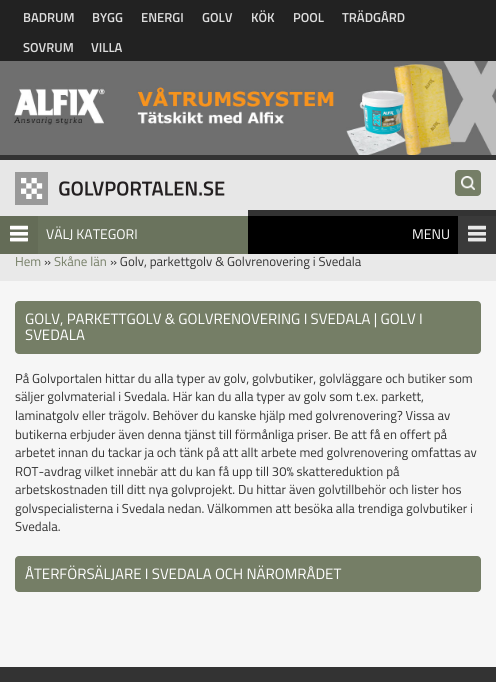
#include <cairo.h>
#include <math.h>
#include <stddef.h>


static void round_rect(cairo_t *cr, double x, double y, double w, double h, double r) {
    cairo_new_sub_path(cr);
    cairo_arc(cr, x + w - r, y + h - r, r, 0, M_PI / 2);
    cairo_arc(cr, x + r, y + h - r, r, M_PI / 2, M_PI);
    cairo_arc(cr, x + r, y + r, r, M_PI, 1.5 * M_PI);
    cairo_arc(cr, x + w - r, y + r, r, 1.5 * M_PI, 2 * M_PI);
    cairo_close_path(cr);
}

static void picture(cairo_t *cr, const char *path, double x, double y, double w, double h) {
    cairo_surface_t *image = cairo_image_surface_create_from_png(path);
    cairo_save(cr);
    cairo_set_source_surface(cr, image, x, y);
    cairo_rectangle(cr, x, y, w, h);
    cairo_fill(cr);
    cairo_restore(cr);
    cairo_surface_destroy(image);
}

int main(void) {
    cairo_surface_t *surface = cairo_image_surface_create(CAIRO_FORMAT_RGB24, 496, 682);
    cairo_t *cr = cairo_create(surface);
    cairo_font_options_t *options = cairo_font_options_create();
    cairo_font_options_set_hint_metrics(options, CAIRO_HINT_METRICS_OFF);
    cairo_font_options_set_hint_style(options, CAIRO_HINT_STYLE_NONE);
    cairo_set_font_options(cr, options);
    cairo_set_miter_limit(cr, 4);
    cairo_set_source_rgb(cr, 0.133, 0.133, 0.133);
    cairo_paint(cr);
    cairo_select_font_face(cr, "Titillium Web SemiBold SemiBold", CAIRO_FONT_SLANT_NORMAL, CAIRO_FONT_WEIGHT_NORMAL);
    cairo_set_font_size(cr, 13);
    cairo_set_source_rgb(cr, 0.867, 0.867, 0.867);
    cairo_move_to(cr, 23, 22);
    cairo_show_text(cr, "BADRUM");
    cairo_move_to(cr, 92, 22);
    cairo_show_text(cr, "BYGG");
    cairo_move_to(cr, 141, 22);
    cairo_show_text(cr, "ENERGI");
    cairo_move_to(cr, 202, 22);
    cairo_show_text(cr, "GOLV");
    cairo_move_to(cr, 251, 22);
    cairo_show_text(cr, "KÖK");
    cairo_move_to(cr, 293, 22);
    cairo_show_text(cr, "POOL");
    cairo_move_to(cr, 342, 22);
    cairo_show_text(cr, "TRÄDGÅRD");
    cairo_move_to(cr, 23, 52);
    cairo_show_text(cr, "SOVRUM");
    cairo_move_to(cr, 91, 52);
    cairo_show_text(cr, "VILLA");
    picture(cr, "img1.png", 0, 61, 496, 94);
    cairo_set_source_rgb(cr, 0.2, 0.2, 0.2);
    cairo_rectangle(cr, 0, 155, 496, 61);
    cairo_fill(cr);
    cairo_set_source_rgb(cr, 0.906, 0.906, 0.906);
    cairo_rectangle(cr, 0, 160, 248, 56);
    cairo_fill(cr);
    picture(cr, "img2.png", 15, 172, 210, 33);
    cairo_rectangle(cr, 248, 160, 248, 50);
    cairo_fill(cr);
    cairo_set_source_rgb(cr, 0.459, 0.494, 0.4);
    round_rect(cr, 455, 170, 26, 26, 4);
    cairo_fill(cr);
    picture(cr, "img3.png", 461, 176, 14, 14);
    cairo_set_source_rgb(cr, 0.416, 0.451, 0.365);
    cairo_rectangle(cr, 38, 216, 210, 38);
    cairo_fill(cr);
    cairo_set_source_rgb(cr, 0.392, 0.424, 0.341);
    cairo_rectangle(cr, 0, 216, 38, 38);
    cairo_fill(cr);
    picture(cr, "img4.png", 10, 225, 18, 17);
    cairo_select_font_face(cr, "Titillium Web", CAIRO_FONT_SLANT_NORMAL, CAIRO_FONT_WEIGHT_NORMAL);
    cairo_set_font_size(cr, 14);
    cairo_set_source_rgb(cr, 1, 1, 1);
    cairo_move_to(cr, 46, 239);
    cairo_show_text(cr, "VÄLJ KATEGORI");
    cairo_set_source_rgb(cr, 0, 0, 0);
    cairo_rectangle(cr, 248, 216, 210, 38);
    cairo_fill(cr);
    cairo_set_source_rgb(cr, 1, 1, 1);
    cairo_move_to(cr, 412, 239);
    cairo_show_text(cr, "MENU");
    cairo_set_source_rgb(cr, 0.227, 0.227, 0.227);
    cairo_rectangle(cr, 458, 216, 38, 38);
    cairo_fill(cr);
    picture(cr, "img5.png", 468, 225, 18, 17);
    cairo_set_source_rgb(cr, 0.961, 0.961, 0.961);
    cairo_rectangle(cr, 0, 281, 496, 386);
    cairo_fill(cr);
    cairo_set_source_rgb(cr, 0.914, 0.914, 0.914);
    cairo_rectangle(cr, 0, 254, 496, 27);
    cairo_fill(cr);
    cairo_set_font_size(cr, 13);
    cairo_set_source_rgb(cr, 0.459, 0.494, 0.4);
    cairo_move_to(cr, 15, 266);
    cairo_show_text(cr, "Hem");
    cairo_set_source_rgb(cr, 0.2, 0.2, 0.2);
    cairo_move_to(cr, 44, 266);
    cairo_show_text(cr, "»");
    cairo_set_source_rgb(cr, 0.459, 0.494, 0.4);
    cairo_move_to(cr, 54, 266);
    cairo_show_text(cr, "Skåne län");
    cairo_set_source_rgb(cr, 0.2, 0.2, 0.2);
    cairo_move_to(cr, 110, 266);
    cairo_show_text(cr, "» Golv, parkettgolv & Golvrenovering i Svedala");
    cairo_set_source_rgb(cr, 0.459, 0.494, 0.4);
    round_rect(cr, 15, 301, 466, 53, 4);
    cairo_fill(cr);
    cairo_set_font_size(cr, 15);
    cairo_set_source_rgb(cr, 1, 1, 1);
    cairo_move_to(cr, 25, 324);
    cairo_show_text(cr, "GOLV, PARKETTGOLV & GOLVRENOVERING I SVEDALA | GOLV I");
    cairo_move_to(cr, 25, 340);
    cairo_show_text(cr, "SVEDALA");
    cairo_set_font_size(cr, 13);
    cairo_set_source_rgb(cr, 0.2, 0.2, 0.2);
    cairo_move_to(cr, 15, 383);
    cairo_show_text(cr, "På Golvportalen hittar du alla typer av golv, golvbutiker, golvläggare och butiker som");
    cairo_move_to(cr, 15, 401);
    cairo_show_text(cr, "säljer golvmaterial i Svedala. Här kan du alla typer av golv som t.ex. parkett,");
    cairo_move_to(cr, 15, 420);
    cairo_show_text(cr, "laminatgolv eller trägolv. Behöver du kanske hjälp med golvrenovering? Vissa av");
    cairo_move_to(cr, 15, 439);
    cairo_show_text(cr, "butikerna erbjuder även denna tjänst till förmånliga priser. Be att få en offert på");
    cairo_move_to(cr, 15, 457);
    cairo_show_text(cr, "arbetet innan du tackar ja och tänk på att allt arbete med golvrenovering omfattas av");
    cairo_move_to(cr, 15, 476);
    cairo_show_text(cr, "ROT-avdrag vilket innebär att du kan få upp till 30% skattereduktion på");
    cairo_move_to(cr, 15, 494);
    cairo_show_text(cr, "arbetskostnaden till ditt nya golvprojekt. Du hittar även golvtillbehör och lister hos");
    cairo_move_to(cr, 15, 513);
    cairo_show_text(cr, "golvspecialisterna i Svedala nedan. Välkommen att besöka alla trendiga golvbutiker i");
    cairo_move_to(cr, 15, 531);
    cairo_show_text(cr, "Svedala.");
    cairo_set_source_rgb(cr, 0.459, 0.494, 0.4);
    round_rect(cr, 15, 556, 466, 36, 4);
    cairo_fill(cr);
    cairo_set_font_size(cr, 15);
    cairo_set_source_rgb(cr, 1, 1, 1);
    cairo_move_to(cr, 25, 579);
    cairo_show_text(cr, "ÅTERFÖRSÄLJARE I SVEDALA OCH NÄROMRÅDET");
    cairo_set_source_rgb(cr, 0.2, 0.2, 0.2);
    cairo_rectangle(cr, 0, 667, 496, 15);
    cairo_fill(cr);
    cairo_surface_write_to_png(surface, "page.png");
    cairo_font_options_destroy(options);
    cairo_destroy(cr);
    cairo_surface_destroy(surface);
    return 0;
}
